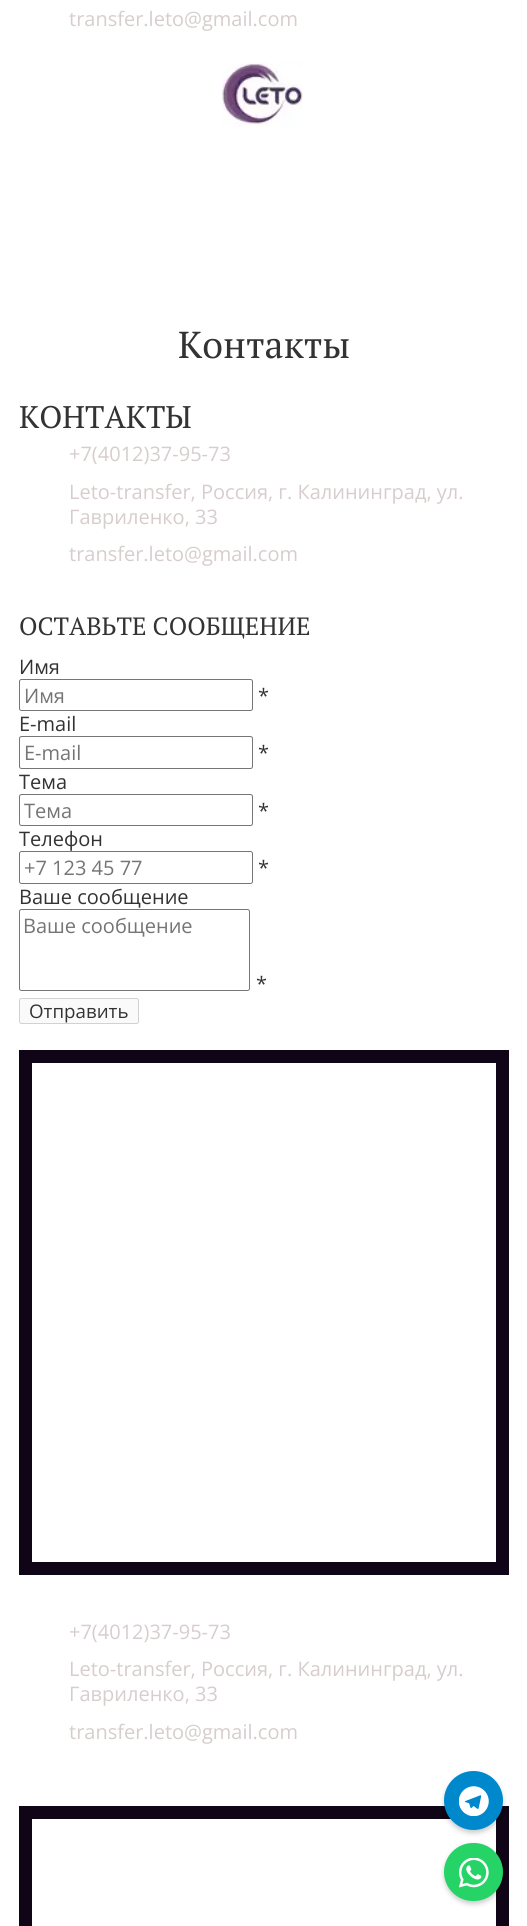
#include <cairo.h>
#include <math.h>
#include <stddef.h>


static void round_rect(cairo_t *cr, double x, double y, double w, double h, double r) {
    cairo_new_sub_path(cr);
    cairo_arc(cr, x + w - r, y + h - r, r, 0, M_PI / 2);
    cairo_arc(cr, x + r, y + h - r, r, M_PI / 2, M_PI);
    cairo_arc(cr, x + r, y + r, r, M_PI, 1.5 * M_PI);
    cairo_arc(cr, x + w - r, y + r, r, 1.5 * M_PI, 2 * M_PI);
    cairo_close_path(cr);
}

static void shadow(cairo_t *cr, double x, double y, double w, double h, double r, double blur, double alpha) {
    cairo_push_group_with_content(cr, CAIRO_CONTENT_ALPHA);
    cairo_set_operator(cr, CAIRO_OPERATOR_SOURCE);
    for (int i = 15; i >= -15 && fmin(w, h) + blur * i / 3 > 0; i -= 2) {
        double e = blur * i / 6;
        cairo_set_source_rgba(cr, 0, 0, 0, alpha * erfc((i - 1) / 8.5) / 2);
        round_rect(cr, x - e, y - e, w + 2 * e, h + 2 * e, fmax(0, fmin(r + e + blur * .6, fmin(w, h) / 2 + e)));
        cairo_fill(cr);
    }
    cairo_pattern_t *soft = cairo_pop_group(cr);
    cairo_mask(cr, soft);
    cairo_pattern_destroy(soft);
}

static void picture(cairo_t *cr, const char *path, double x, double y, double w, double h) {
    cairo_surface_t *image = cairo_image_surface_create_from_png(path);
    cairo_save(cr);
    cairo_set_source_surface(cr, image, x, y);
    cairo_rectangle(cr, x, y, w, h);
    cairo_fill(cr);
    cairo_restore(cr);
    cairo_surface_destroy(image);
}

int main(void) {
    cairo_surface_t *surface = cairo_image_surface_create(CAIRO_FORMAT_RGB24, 527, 1926);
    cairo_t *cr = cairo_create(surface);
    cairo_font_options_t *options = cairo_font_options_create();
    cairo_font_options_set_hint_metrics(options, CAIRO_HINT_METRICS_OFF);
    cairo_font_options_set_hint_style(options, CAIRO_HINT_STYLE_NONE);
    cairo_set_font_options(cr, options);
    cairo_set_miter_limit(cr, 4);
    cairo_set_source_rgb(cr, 1, 1, 1);
    cairo_paint(cr);
    cairo_select_font_face(cr, "Open Sans", CAIRO_FONT_SLANT_NORMAL, CAIRO_FONT_WEIGHT_NORMAL);
    cairo_set_font_size(cr, 20);
    cairo_set_source_rgb(cr, 0.843, 0.804, 0.804);
    cairo_move_to(cr, 69, 26);
    cairo_show_text(cr, "transfer.leto@gmail.com");
    picture(cr, "img1.png", 222, 62, 81, 65);
    cairo_select_font_face(cr, "PT Serif", CAIRO_FONT_SLANT_NORMAL, CAIRO_FONT_WEIGHT_NORMAL);
    cairo_set_font_size(cr, 37.5);
    cairo_set_source_rgb(cr, 0.2, 0.2, 0.2);
    cairo_move_to(cr, 178, 358);
    cairo_show_text(cr, "Контакты");
    cairo_set_font_size(cr, 31.25);
    cairo_move_to(cr, 19, 428);
    cairo_show_text(cr, "КОНТАКТЫ");
    cairo_select_font_face(cr, "Open Sans", CAIRO_FONT_SLANT_NORMAL, CAIRO_FONT_WEIGHT_NORMAL);
    cairo_set_font_size(cr, 20);
    cairo_set_source_rgb(cr, 0.843, 0.804, 0.804);
    cairo_move_to(cr, 69, 461);
    cairo_show_text(cr, "+7(4012)37-95-73");
    cairo_move_to(cr, 69, 499);
    cairo_show_text(cr, "Leto-transfer, Россия, г. Калининград, ул.");
    cairo_move_to(cr, 69, 524);
    cairo_show_text(cr, "Гавриленко, 33");
    cairo_move_to(cr, 69, 561);
    cairo_show_text(cr, "transfer.leto@gmail.com");
    cairo_select_font_face(cr, "PT Serif", CAIRO_FONT_SLANT_NORMAL, CAIRO_FONT_WEIGHT_NORMAL);
    cairo_set_font_size(cr, 25);
    cairo_set_source_rgb(cr, 0.2, 0.2, 0.2);
    cairo_move_to(cr, 19, 635);
    cairo_show_text(cr, "ОСТАВЬТЕ СООБЩЕНИЕ");
    cairo_select_font_face(cr, "Open Sans", CAIRO_FONT_SLANT_NORMAL, CAIRO_FONT_WEIGHT_NORMAL);
    cairo_set_font_size(cr, 20);
    cairo_move_to(cr, 19, 674);
    cairo_show_text(cr, "Имя");
    round_rect(cr, 19.5, 679.5, 233, 31, 2);
    cairo_set_source_rgb(cr, 0.463, 0.463, 0.463);
    cairo_set_line_width(cr, 1);
    cairo_stroke(cr);
    cairo_set_source_rgb(cr, 0.459, 0.459, 0.459);
    cairo_move_to(cr, 24, 703);
    cairo_show_text(cr, "Имя");
    cairo_set_source_rgb(cr, 0.2, 0.2, 0.2);
    cairo_move_to(cr, 258, 703);
    cairo_show_text(cr, "*");
    cairo_move_to(cr, 19, 731);
    cairo_show_text(cr, "E-mail");
    round_rect(cr, 19.5, 736.5, 233, 32, 2);
    cairo_set_source_rgb(cr, 0.463, 0.463, 0.463);
    cairo_stroke(cr);
    cairo_set_source_rgb(cr, 0.459, 0.459, 0.459);
    cairo_move_to(cr, 24, 760);
    cairo_show_text(cr, "E-mail");
    cairo_set_source_rgb(cr, 0.2, 0.2, 0.2);
    cairo_move_to(cr, 258, 760);
    cairo_show_text(cr, "*");
    cairo_move_to(cr, 19, 789);
    cairo_show_text(cr, "Тема");
    round_rect(cr, 19.5, 794.5, 233, 31, 2);
    cairo_set_source_rgb(cr, 0.463, 0.463, 0.463);
    cairo_stroke(cr);
    cairo_set_source_rgb(cr, 0.459, 0.459, 0.459);
    cairo_move_to(cr, 24, 818);
    cairo_show_text(cr, "Тема");
    cairo_set_source_rgb(cr, 0.2, 0.2, 0.2);
    cairo_move_to(cr, 258, 818);
    cairo_show_text(cr, "*");
    cairo_move_to(cr, 19, 846);
    cairo_show_text(cr, "Телефон");
    round_rect(cr, 19.5, 851.5, 233, 32, 2);
    cairo_set_source_rgb(cr, 0.463, 0.463, 0.463);
    cairo_stroke(cr);
    cairo_set_source_rgb(cr, 0.459, 0.459, 0.459);
    cairo_move_to(cr, 24, 875);
    cairo_show_text(cr, "+7 123 45 77");
    cairo_set_source_rgb(cr, 0.2, 0.2, 0.2);
    cairo_move_to(cr, 258, 875);
    cairo_show_text(cr, "*");
    cairo_move_to(cr, 19, 904);
    cairo_show_text(cr, "Ваше сообщение");
    round_rect(cr, 19.5, 909.5, 230, 81, 2);
    cairo_set_source_rgb(cr, 0.463, 0.463, 0.463);
    cairo_stroke(cr);
    cairo_set_source_rgb(cr, 0.459, 0.459, 0.459);
    cairo_move_to(cr, 23, 933);
    cairo_show_text(cr, "Ваше сообщение");
    cairo_set_source_rgb(cr, 0.2, 0.2, 0.2);
    cairo_move_to(cr, 256, 991);
    cairo_show_text(cr, "*");
    cairo_set_source_rgb(cr, 0.98, 0.98, 0.98);
    round_rect(cr, 19.5, 998.5, 119, 25, 2);
    cairo_fill_preserve(cr);
    cairo_set_source_rgb(cr, 0.824, 0.824, 0.824);
    cairo_stroke(cr);
    cairo_set_font_size(cr, 18.75);
    cairo_set_source_rgb(cr, 0.2, 0.2, 0.2);
    cairo_move_to(cr, 29, 1018);
    cairo_show_text(cr, "Отправить");
    cairo_rectangle(cr, 25.5, 1056.5, 477, 512);
    cairo_set_source_rgb(cr, 0.063, 0.016, 0.09);
    cairo_set_line_width(cr, 13);
    cairo_stroke(cr);
    cairo_set_font_size(cr, 20);
    cairo_set_source_rgb(cr, 0.843, 0.804, 0.804);
    cairo_move_to(cr, 69, 1639);
    cairo_show_text(cr, "+7(4012)37-95-73");
    cairo_move_to(cr, 69, 1676);
    cairo_show_text(cr, "Leto-transfer, Россия, г. Калининград, ул.");
    cairo_move_to(cr, 69, 1701);
    cairo_show_text(cr, "Гавриленко, 33");
    cairo_move_to(cr, 69, 1739);
    cairo_show_text(cr, "transfer.leto@gmail.com");
    cairo_rectangle(cr, 25.5, 1812.5, 477, 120);
    cairo_set_source_rgb(cr, 0.063, 0.016, 0.09);
    cairo_stroke(cr);
    cairo_set_source_rgb(cr, 0, 0, 0);
    shadow(cr, 444, 1774, 59, 59, 29.5, 2.5, 0.2);
    cairo_set_source_rgb(cr, 0, 0.533, 0.8);
    cairo_arc(cr, 473.5, 1800.5, 29.5, 0, 2 * M_PI);
    cairo_fill(cr);
    picture(cr, "img2.png", 459, 1786, 30, 30);
    cairo_set_source_rgb(cr, 0, 0, 0);
    shadow(cr, 444, 1845, 59, 59, 29.5, 2.5, 0.2);
    cairo_set_source_rgb(cr, 0.145, 0.827, 0.4);
    round_rect(cr, 444, 1843, 59, 58, 29);
    cairo_fill(cr);
    picture(cr, "img3.png", 459, 1858, 30, 30);
    cairo_surface_write_to_png(surface, "page.png");
    cairo_font_options_destroy(options);
    cairo_destroy(cr);
    cairo_surface_destroy(surface);
    return 0;
}
